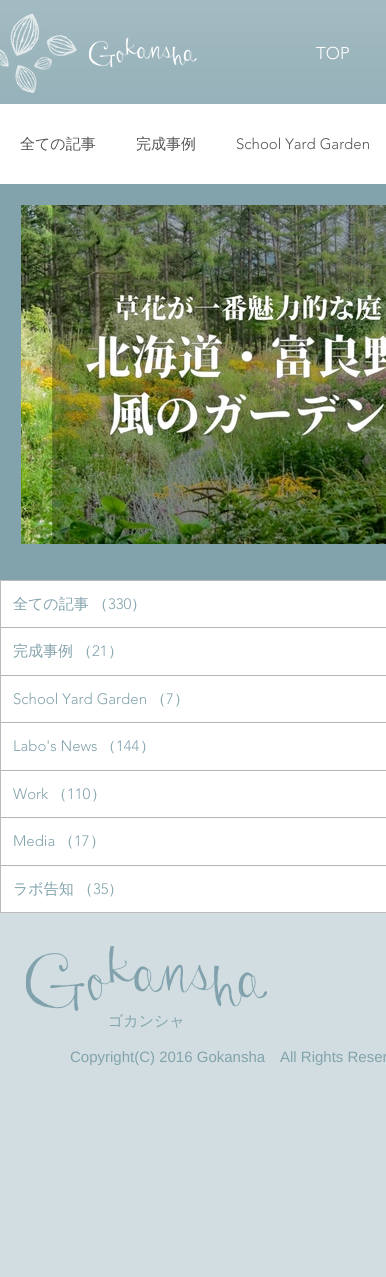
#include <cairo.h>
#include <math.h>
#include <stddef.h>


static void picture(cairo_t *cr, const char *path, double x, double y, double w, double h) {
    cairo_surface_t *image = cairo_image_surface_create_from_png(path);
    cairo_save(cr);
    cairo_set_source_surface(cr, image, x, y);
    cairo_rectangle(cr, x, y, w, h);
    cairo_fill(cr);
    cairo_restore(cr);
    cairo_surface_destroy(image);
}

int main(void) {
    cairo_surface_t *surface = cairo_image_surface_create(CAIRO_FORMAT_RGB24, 386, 1277);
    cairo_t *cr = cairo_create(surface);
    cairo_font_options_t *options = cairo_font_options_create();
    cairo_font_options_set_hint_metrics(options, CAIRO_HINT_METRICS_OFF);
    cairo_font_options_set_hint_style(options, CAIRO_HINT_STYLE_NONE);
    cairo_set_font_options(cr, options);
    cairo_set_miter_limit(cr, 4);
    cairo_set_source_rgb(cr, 0.514, 0.639, 0.675);
    cairo_paint(cr);
    picture(cr, "img1.png", 0, 0, 386, 104);
    picture(cr, "img2.png", 0, 13, 77, 80);
    picture(cr, "img3.png", 88, 37, 109, 31);
    cairo_select_font_face(cr, "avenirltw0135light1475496 Light", CAIRO_FONT_SLANT_NORMAL, CAIRO_FONT_WEIGHT_NORMAL);
    cairo_set_font_size(cr, 17);
    cairo_set_source_rgb(cr, 1, 1, 1);
    cairo_move_to(cr, 316, 59);
    cairo_show_text(cr, "TOP");
    cairo_rectangle(cr, 0, 104, 386, 80);
    cairo_fill(cr);
    cairo_select_font_face(cr, "WenQuanYi Zen Hei Medium", CAIRO_FONT_SLANT_NORMAL, CAIRO_FONT_WEIGHT_NORMAL);
    cairo_set_font_size(cr, 15);
    cairo_set_source_rgb(cr, 0.333, 0.333, 0.333);
    cairo_move_to(cr, 20, 149);
    cairo_show_text(cr, "全ての記事");
    cairo_move_to(cr, 136, 149);
    cairo_show_text(cr, "完成事例");
    cairo_select_font_face(cr, "avenirltw0135light1475496 Light", CAIRO_FONT_SLANT_NORMAL, CAIRO_FONT_WEIGHT_NORMAL);
    cairo_move_to(cr, 236, 149);
    cairo_show_text(cr, "School Yard Garden");
    picture(cr, "img4.png", 21, 205, 365, 339);
    cairo_set_source_rgb(cr, 1, 1, 1);
    cairo_rectangle(cr, 0.5, 580.5, 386, 332);
    cairo_fill_preserve(cr);
    cairo_set_source_rgb(cr, 0.733, 0.733, 0.733);
    cairo_set_line_width(cr, 1);
    cairo_stroke(cr);
    cairo_select_font_face(cr, "WenQuanYi Zen Hei Medium", CAIRO_FONT_SLANT_NORMAL, CAIRO_FONT_WEIGHT_NORMAL);
    cairo_set_source_rgb(cr, 0.514, 0.639, 0.675);
    cairo_move_to(cr, 13, 609);
    cairo_show_text(cr, "全ての記事");
    cairo_move_to(cr, 93, 609);
    cairo_show_text(cr, "（");
    cairo_select_font_face(cr, "avenirltw0135light1475496 Light", CAIRO_FONT_SLANT_NORMAL, CAIRO_FONT_WEIGHT_NORMAL);
    cairo_move_to(cr, 108, 609);
    cairo_show_text(cr, "330");
    cairo_select_font_face(cr, "WenQuanYi Zen Hei Medium", CAIRO_FONT_SLANT_NORMAL, CAIRO_FONT_WEIGHT_NORMAL);
    cairo_move_to(cr, 131, 609);
    cairo_show_text(cr, "）");
    cairo_set_source_rgb(cr, 0.706, 0.706, 0.706);
    cairo_rectangle(cr, 1, 627, 385, 1);
    cairo_fill(cr);
    cairo_set_source_rgb(cr, 0.514, 0.639, 0.675);
    cairo_move_to(cr, 13, 656);
    cairo_show_text(cr, "完成事例");
    cairo_move_to(cr, 77, 656);
    cairo_show_text(cr, "（");
    cairo_select_font_face(cr, "avenirltw0135light1475496 Light", CAIRO_FONT_SLANT_NORMAL, CAIRO_FONT_WEIGHT_NORMAL);
    cairo_move_to(cr, 92, 656);
    cairo_show_text(cr, "21");
    cairo_select_font_face(cr, "WenQuanYi Zen Hei Medium", CAIRO_FONT_SLANT_NORMAL, CAIRO_FONT_WEIGHT_NORMAL);
    cairo_move_to(cr, 108, 656);
    cairo_show_text(cr, "）");
    cairo_set_source_rgb(cr, 0.706, 0.706, 0.706);
    cairo_rectangle(cr, 1, 675, 385, 1);
    cairo_fill(cr);
    cairo_select_font_face(cr, "avenirltw0135light1475496 Light", CAIRO_FONT_SLANT_NORMAL, CAIRO_FONT_WEIGHT_NORMAL);
    cairo_set_source_rgb(cr, 0.514, 0.639, 0.675);
    cairo_move_to(cr, 13, 704);
    cairo_show_text(cr, "School Yard Garden");
    cairo_select_font_face(cr, "WenQuanYi Zen Hei Medium", CAIRO_FONT_SLANT_NORMAL, CAIRO_FONT_WEIGHT_NORMAL);
    cairo_move_to(cr, 151, 704);
    cairo_show_text(cr, "（");
    cairo_select_font_face(cr, "avenirltw0135light1475496 Light", CAIRO_FONT_SLANT_NORMAL, CAIRO_FONT_WEIGHT_NORMAL);
    cairo_move_to(cr, 166, 704);
    cairo_show_text(cr, "7");
    cairo_select_font_face(cr, "WenQuanYi Zen Hei Medium", CAIRO_FONT_SLANT_NORMAL, CAIRO_FONT_WEIGHT_NORMAL);
    cairo_move_to(cr, 174, 704);
    cairo_show_text(cr, "）");
    cairo_set_source_rgb(cr, 0.706, 0.706, 0.706);
    cairo_rectangle(cr, 1, 722, 385, 1);
    cairo_fill(cr);
    cairo_select_font_face(cr, "avenirltw0135light1475496 Light", CAIRO_FONT_SLANT_NORMAL, CAIRO_FONT_WEIGHT_NORMAL);
    cairo_set_source_rgb(cr, 0.514, 0.639, 0.675);
    cairo_move_to(cr, 13, 751);
    cairo_show_text(cr, "Labo's News");
    cairo_select_font_face(cr, "WenQuanYi Zen Hei Medium", CAIRO_FONT_SLANT_NORMAL, CAIRO_FONT_WEIGHT_NORMAL);
    cairo_move_to(cr, 101, 751);
    cairo_show_text(cr, "（");
    cairo_select_font_face(cr, "avenirltw0135light1475496 Light", CAIRO_FONT_SLANT_NORMAL, CAIRO_FONT_WEIGHT_NORMAL);
    cairo_move_to(cr, 116, 751);
    cairo_show_text(cr, "144");
    cairo_select_font_face(cr, "WenQuanYi Zen Hei Medium", CAIRO_FONT_SLANT_NORMAL, CAIRO_FONT_WEIGHT_NORMAL);
    cairo_move_to(cr, 140, 751);
    cairo_show_text(cr, "）");
    cairo_set_source_rgb(cr, 0.706, 0.706, 0.706);
    cairo_rectangle(cr, 1, 770, 385, 1);
    cairo_fill(cr);
    cairo_select_font_face(cr, "avenirltw0135light1475496 Light", CAIRO_FONT_SLANT_NORMAL, CAIRO_FONT_WEIGHT_NORMAL);
    cairo_set_source_rgb(cr, 0.514, 0.639, 0.675);
    cairo_move_to(cr, 13, 799);
    cairo_show_text(cr, "Work");
    cairo_select_font_face(cr, "WenQuanYi Zen Hei Medium", CAIRO_FONT_SLANT_NORMAL, CAIRO_FONT_WEIGHT_NORMAL);
    cairo_move_to(cr, 52, 799);
    cairo_show_text(cr, "（");
    cairo_select_font_face(cr, "avenirltw0135light1475496 Light", CAIRO_FONT_SLANT_NORMAL, CAIRO_FONT_WEIGHT_NORMAL);
    cairo_move_to(cr, 67, 799);
    cairo_show_text(cr, "110");
    cairo_select_font_face(cr, "WenQuanYi Zen Hei Medium", CAIRO_FONT_SLANT_NORMAL, CAIRO_FONT_WEIGHT_NORMAL);
    cairo_move_to(cr, 91, 799);
    cairo_show_text(cr, "）");
    cairo_set_source_rgb(cr, 0.706, 0.706, 0.706);
    cairo_rectangle(cr, 1, 817, 385, 1);
    cairo_fill(cr);
    cairo_select_font_face(cr, "avenirltw0135light1475496 Light", CAIRO_FONT_SLANT_NORMAL, CAIRO_FONT_WEIGHT_NORMAL);
    cairo_set_source_rgb(cr, 0.514, 0.639, 0.675);
    cairo_move_to(cr, 13, 846);
    cairo_show_text(cr, "Media");
    cairo_select_font_face(cr, "WenQuanYi Zen Hei Medium", CAIRO_FONT_SLANT_NORMAL, CAIRO_FONT_WEIGHT_NORMAL);
    cairo_move_to(cr, 59, 846);
    cairo_show_text(cr, "（");
    cairo_select_font_face(cr, "avenirltw0135light1475496 Light", CAIRO_FONT_SLANT_NORMAL, CAIRO_FONT_WEIGHT_NORMAL);
    cairo_move_to(cr, 74, 846);
    cairo_show_text(cr, "17");
    cairo_select_font_face(cr, "WenQuanYi Zen Hei Medium", CAIRO_FONT_SLANT_NORMAL, CAIRO_FONT_WEIGHT_NORMAL);
    cairo_move_to(cr, 90, 846);
    cairo_show_text(cr, "）");
    cairo_set_source_rgb(cr, 0.706, 0.706, 0.706);
    cairo_rectangle(cr, 1, 865, 385, 1);
    cairo_fill(cr);
    cairo_set_source_rgb(cr, 0.514, 0.639, 0.675);
    cairo_move_to(cr, 13, 894);
    cairo_show_text(cr, "ラボ告知");
    cairo_move_to(cr, 78, 894);
    cairo_show_text(cr, "（");
    cairo_select_font_face(cr, "avenirltw0135light1475496 Light", CAIRO_FONT_SLANT_NORMAL, CAIRO_FONT_WEIGHT_NORMAL);
    cairo_move_to(cr, 93, 894);
    cairo_show_text(cr, "35");
    cairo_select_font_face(cr, "WenQuanYi Zen Hei Medium", CAIRO_FONT_SLANT_NORMAL, CAIRO_FONT_WEIGHT_NORMAL);
    cairo_move_to(cr, 108, 894);
    cairo_show_text(cr, "）");
    cairo_set_source_rgb(cr, 0.82, 0.867, 0.878);
    cairo_rectangle(cr, 0, 913, 386, 364);
    cairo_fill(cr);
    picture(cr, "img5.png", 26, 946, 241, 65);
    cairo_set_source_rgb(cr, 0.514, 0.639, 0.675);
    cairo_move_to(cr, 108, 1026);
    cairo_show_text(cr, "ゴカンシャ");
    cairo_select_font_face(cr, "Liberation Sans", CAIRO_FONT_SLANT_NORMAL, CAIRO_FONT_WEIGHT_NORMAL);
    cairo_move_to(cr, 70, 1062);
    cairo_show_text(cr, "Copyright(C) 2016 Gokansha");
    cairo_move_to(cr, 280, 1062);
    cairo_show_text(cr, "All Rights Reser");
    cairo_surface_write_to_png(surface, "page.png");
    cairo_font_options_destroy(options);
    cairo_destroy(cr);
    cairo_surface_destroy(surface);
    return 0;
}
